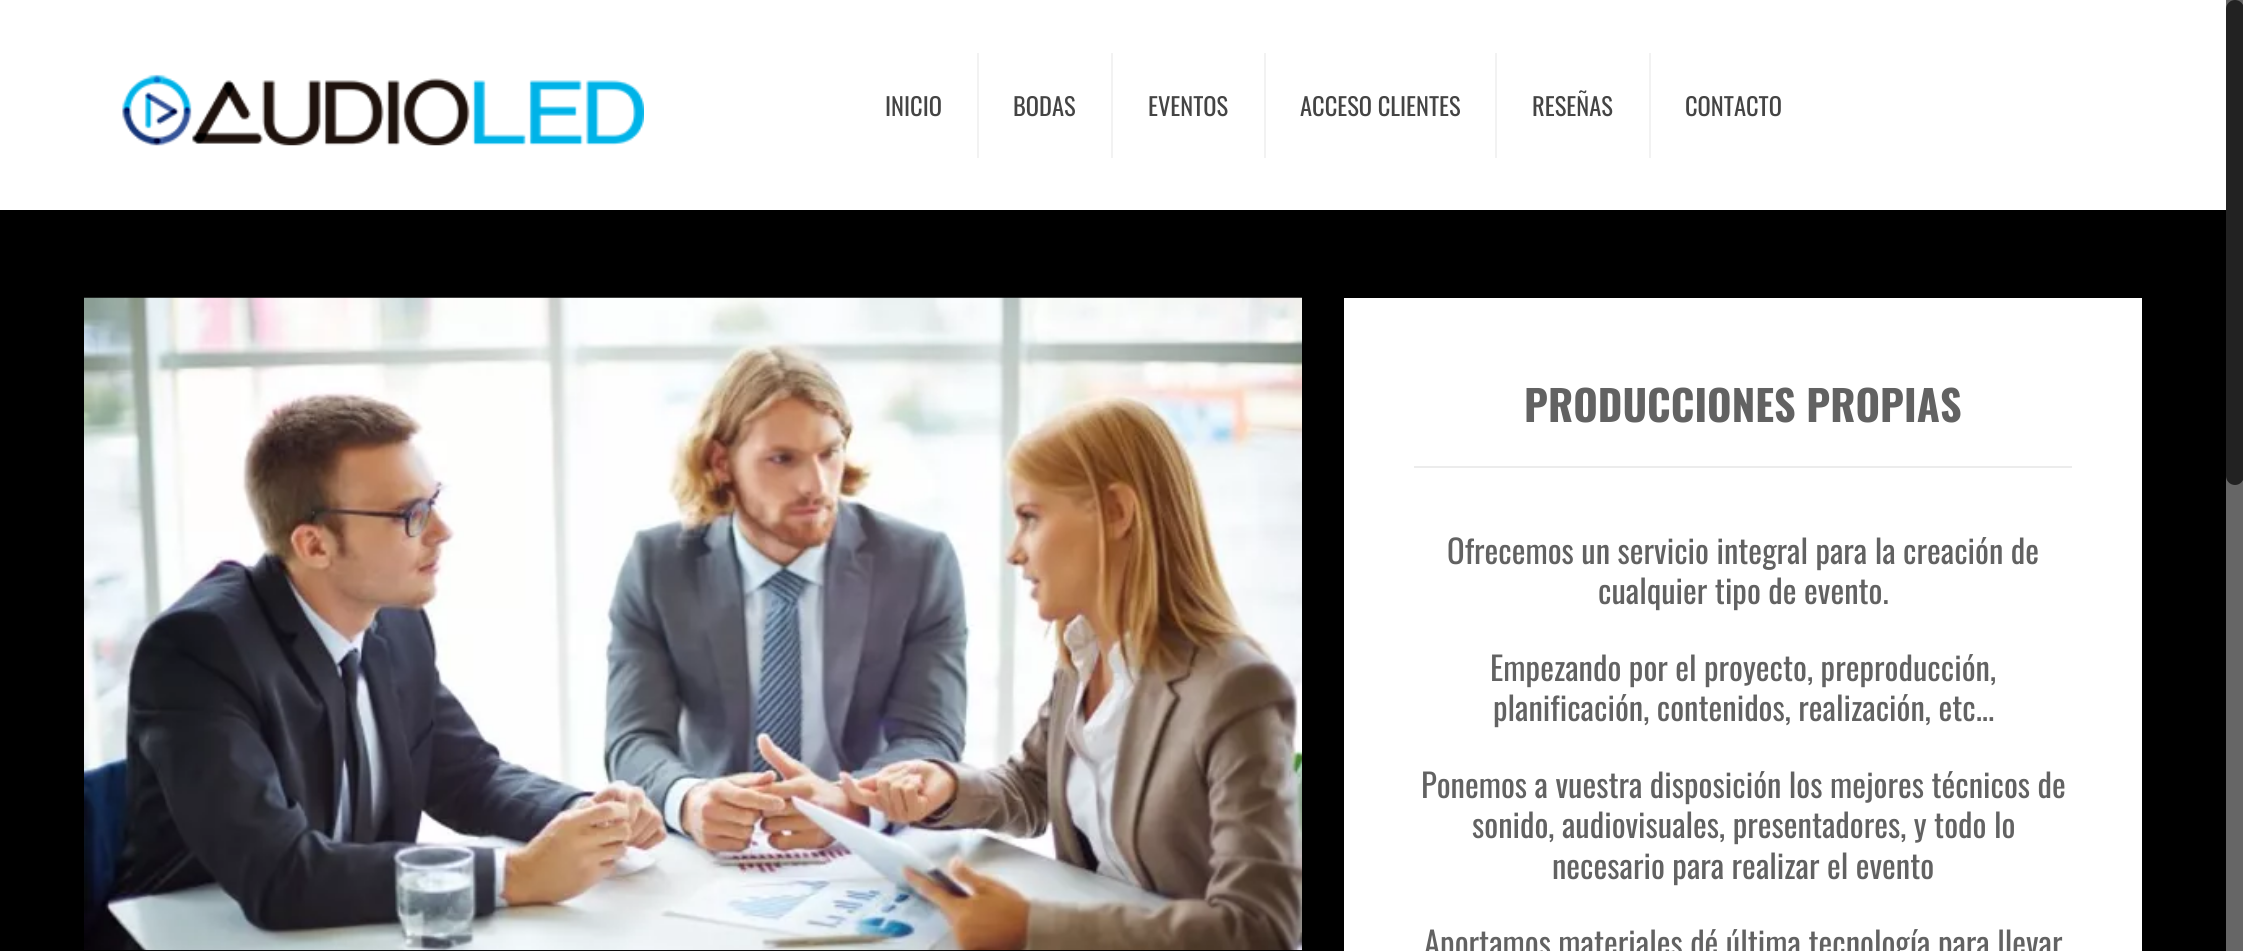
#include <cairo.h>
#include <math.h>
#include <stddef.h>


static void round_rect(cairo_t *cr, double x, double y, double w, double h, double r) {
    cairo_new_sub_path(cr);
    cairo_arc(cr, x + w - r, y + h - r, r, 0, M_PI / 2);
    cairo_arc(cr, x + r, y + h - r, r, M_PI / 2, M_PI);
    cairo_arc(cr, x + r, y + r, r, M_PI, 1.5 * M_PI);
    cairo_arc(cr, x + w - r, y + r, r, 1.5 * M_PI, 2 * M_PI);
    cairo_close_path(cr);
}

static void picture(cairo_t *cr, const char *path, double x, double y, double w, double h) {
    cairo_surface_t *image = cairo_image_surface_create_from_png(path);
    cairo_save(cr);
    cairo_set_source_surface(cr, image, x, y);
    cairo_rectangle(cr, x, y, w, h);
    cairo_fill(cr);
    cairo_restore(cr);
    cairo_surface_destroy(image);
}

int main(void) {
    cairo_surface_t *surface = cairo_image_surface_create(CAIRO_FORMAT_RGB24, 2243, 951);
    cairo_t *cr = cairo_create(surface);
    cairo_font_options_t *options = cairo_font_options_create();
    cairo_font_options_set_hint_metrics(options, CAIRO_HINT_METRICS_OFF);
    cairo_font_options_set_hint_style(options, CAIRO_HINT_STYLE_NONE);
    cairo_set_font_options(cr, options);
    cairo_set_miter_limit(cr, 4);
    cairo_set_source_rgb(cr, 1, 1, 1);
    cairo_paint(cr);
    picture(cr, "img1.png", 122, 74, 522, 72);
    cairo_set_source_rgb(cr, 0.949, 0.949, 0.949);
    cairo_rectangle(cr, 977, 53, 2, 105);
    cairo_fill(cr);
    cairo_select_font_face(cr, "Oswald", CAIRO_FONT_SLANT_NORMAL, CAIRO_FONT_WEIGHT_NORMAL);
    cairo_set_font_size(cr, 24.5);
    cairo_set_source_rgb(cr, 0.267, 0.267, 0.267);
    cairo_move_to(cr, 885, 116);
    cairo_show_text(cr, "INICIO");
    cairo_set_source_rgb(cr, 0.949, 0.949, 0.949);
    cairo_rectangle(cr, 1111, 53, 2, 105);
    cairo_fill(cr);
    cairo_set_source_rgb(cr, 0.267, 0.267, 0.267);
    cairo_move_to(cr, 1013, 116);
    cairo_show_text(cr, "BODAS");
    cairo_set_source_rgb(cr, 0.949, 0.949, 0.949);
    cairo_rectangle(cr, 1264, 53, 2, 105);
    cairo_fill(cr);
    cairo_set_source_rgb(cr, 0.267, 0.267, 0.267);
    cairo_move_to(cr, 1148, 116);
    cairo_show_text(cr, "EVENTOS");
    cairo_set_source_rgb(cr, 0.949, 0.949, 0.949);
    cairo_rectangle(cr, 1495, 53, 2, 105);
    cairo_fill(cr);
    cairo_set_source_rgb(cr, 0.267, 0.267, 0.267);
    cairo_move_to(cr, 1300, 116);
    cairo_show_text(cr, "ACCESO CLIENTES");
    cairo_set_source_rgb(cr, 0.949, 0.949, 0.949);
    cairo_rectangle(cr, 1649, 53, 2, 105);
    cairo_fill(cr);
    cairo_set_source_rgb(cr, 0.267, 0.267, 0.267);
    cairo_move_to(cr, 1532, 116);
    cairo_show_text(cr, "RESEÑAS");
    cairo_move_to(cr, 1685, 116);
    cairo_show_text(cr, "CONTACTO");
    cairo_set_source_rgb(cr, 0, 0, 0);
    cairo_rectangle(cr, 0, 210, 2226, 741);
    cairo_fill(cr);
    picture(cr, "img2.png", 84, 297, 1218, 654);
    cairo_set_source_rgb(cr, 1, 1, 1);
    cairo_rectangle(cr, 1344, 298, 798, 653);
    cairo_fill(cr);
    cairo_select_font_face(cr, "Oswald", CAIRO_FONT_SLANT_NORMAL, CAIRO_FONT_WEIGHT_BOLD);
    cairo_set_font_size(cr, 42);
    cairo_set_source_rgb(cr, 0.384, 0.384, 0.384);
    cairo_move_to(cr, 1524, 422);
    cairo_show_text(cr, "PRODUCCIONES PROPIAS");
    cairo_set_source_rgb(cr, 0.922, 0.922, 0.922);
    cairo_rectangle(cr, 1414, 466, 658, 2);
    cairo_fill(cr);
    cairo_select_font_face(cr, "Oswald", CAIRO_FONT_SLANT_NORMAL, CAIRO_FONT_WEIGHT_NORMAL);
    cairo_set_font_size(cr, 32.7);
    cairo_set_source_rgb(cr, 0.384, 0.384, 0.384);
    cairo_move_to(cr, 1447, 564);
    cairo_show_text(cr, "Ofrecemos un servicio integral para la creación de");
    cairo_move_to(cr, 1598, 604);
    cairo_show_text(cr, "cualquier tipo de evento.");
    cairo_move_to(cr, 1490, 681);
    cairo_show_text(cr, "Empezando por el proyecto, preproducción,");
    cairo_move_to(cr, 1493, 721);
    cairo_show_text(cr, "planificación, contenidos, realización, etc...");
    cairo_move_to(cr, 1421, 798);
    cairo_show_text(cr, "Ponemos a vuestra disposición los mejores técnicos de");
    cairo_move_to(cr, 1472, 838);
    cairo_show_text(cr, "sonido, audiovisuales, presentadores, y todo lo");
    cairo_move_to(cr, 1552, 879);
    cairo_show_text(cr, "necesario para realizar el evento");
    cairo_move_to(cr, 1424, 956);
    cairo_show_text(cr, "Aportamos materiales dé última tecnología para llevar");
    cairo_set_source_rgb(cr, 0.4, 0.4, 0.4);
    cairo_rectangle(cr, 2226, 0, 17, 951);
    cairo_fill(cr);
    cairo_set_source_rgb(cr, 0.133, 0.133, 0.133);
    round_rect(cr, 2226, 0, 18, 485, 9);
    cairo_fill(cr);
    cairo_surface_write_to_png(surface, "page.png");
    cairo_font_options_destroy(options);
    cairo_destroy(cr);
    cairo_surface_destroy(surface);
    return 0;
}
